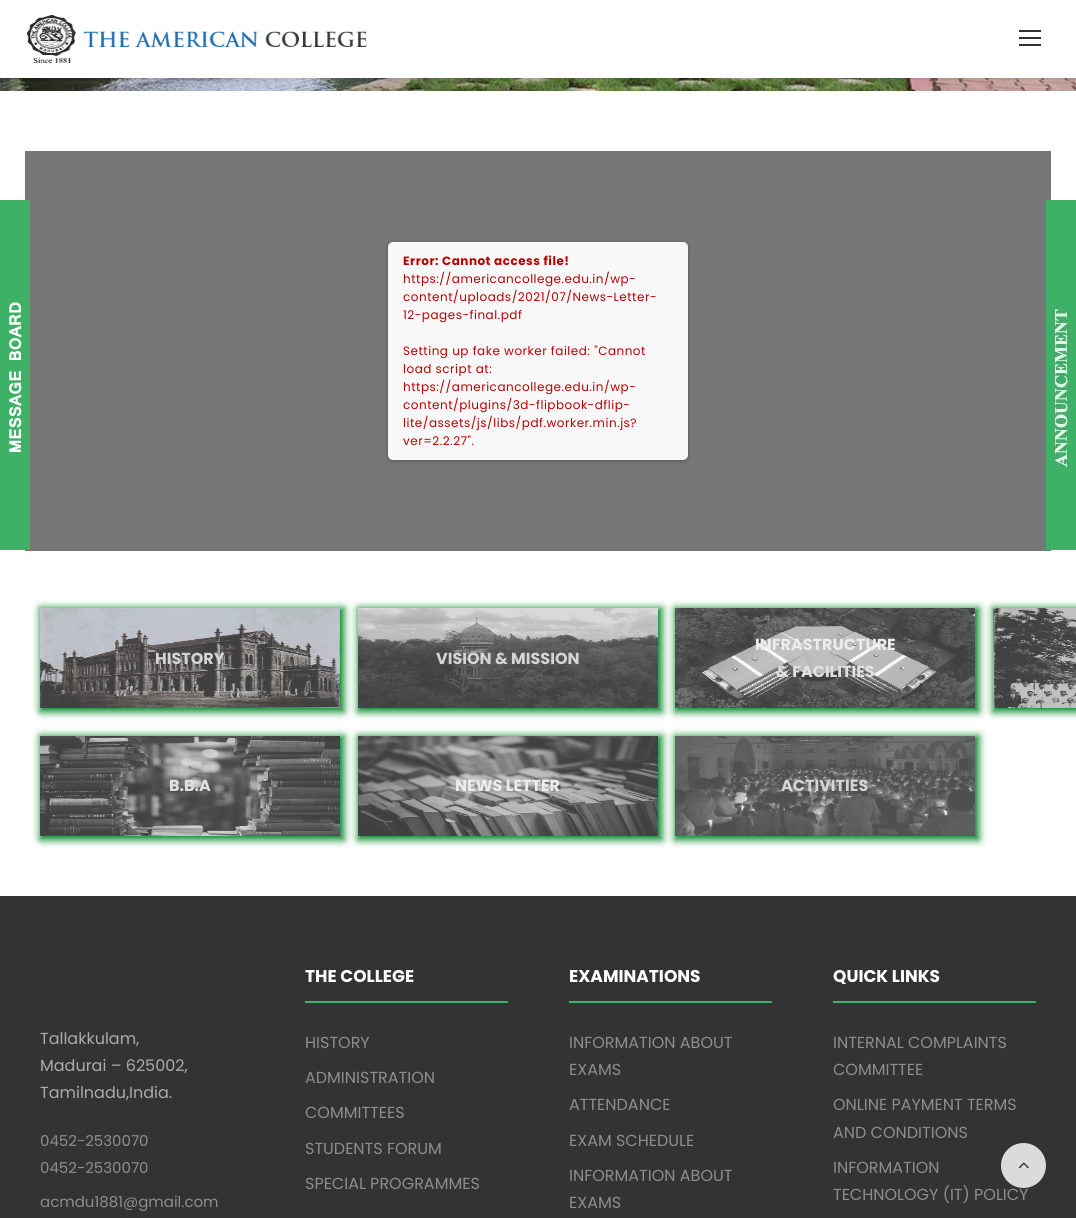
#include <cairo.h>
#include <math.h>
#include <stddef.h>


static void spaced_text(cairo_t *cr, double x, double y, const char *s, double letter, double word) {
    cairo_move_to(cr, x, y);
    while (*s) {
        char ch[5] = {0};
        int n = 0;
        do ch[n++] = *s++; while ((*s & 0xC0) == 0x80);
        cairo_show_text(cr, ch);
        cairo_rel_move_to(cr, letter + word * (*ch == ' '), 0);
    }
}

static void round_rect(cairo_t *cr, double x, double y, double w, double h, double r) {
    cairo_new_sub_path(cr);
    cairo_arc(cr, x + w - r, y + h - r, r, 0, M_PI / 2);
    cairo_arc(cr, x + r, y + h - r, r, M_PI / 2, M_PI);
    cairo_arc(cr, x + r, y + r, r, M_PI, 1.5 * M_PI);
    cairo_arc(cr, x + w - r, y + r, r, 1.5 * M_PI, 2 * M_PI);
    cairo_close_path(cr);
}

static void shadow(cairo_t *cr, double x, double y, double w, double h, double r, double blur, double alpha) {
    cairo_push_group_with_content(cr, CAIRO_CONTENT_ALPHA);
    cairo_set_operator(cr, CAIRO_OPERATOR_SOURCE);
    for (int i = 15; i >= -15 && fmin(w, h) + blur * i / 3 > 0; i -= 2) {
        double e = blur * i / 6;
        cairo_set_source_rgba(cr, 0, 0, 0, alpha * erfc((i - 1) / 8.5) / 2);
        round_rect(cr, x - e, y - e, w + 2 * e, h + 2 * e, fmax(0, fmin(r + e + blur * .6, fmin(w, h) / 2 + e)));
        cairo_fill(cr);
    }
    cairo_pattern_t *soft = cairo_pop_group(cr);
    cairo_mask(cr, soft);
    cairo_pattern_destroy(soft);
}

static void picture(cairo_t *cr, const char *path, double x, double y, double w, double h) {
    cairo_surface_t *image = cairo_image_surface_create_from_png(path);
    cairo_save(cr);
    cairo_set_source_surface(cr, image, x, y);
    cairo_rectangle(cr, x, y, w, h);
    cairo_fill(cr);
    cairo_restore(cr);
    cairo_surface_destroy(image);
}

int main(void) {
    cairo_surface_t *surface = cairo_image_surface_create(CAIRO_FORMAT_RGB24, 1076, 1218);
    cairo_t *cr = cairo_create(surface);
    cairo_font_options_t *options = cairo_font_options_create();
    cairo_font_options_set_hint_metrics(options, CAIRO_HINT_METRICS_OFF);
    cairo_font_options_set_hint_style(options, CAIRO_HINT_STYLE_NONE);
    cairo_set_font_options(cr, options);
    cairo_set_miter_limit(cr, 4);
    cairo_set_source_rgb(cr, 1, 1, 1);
    cairo_paint(cr);
    picture(cr, "img3.png", 0, 78, 1076, 13);
    cairo_set_source_rgb(cr, 0, 0, 0);
    shadow(cr, 0, 1, 1076, 78, 0, 2, 0.1);
    cairo_set_source_rgb(cr, 1, 1, 1);
    cairo_rectangle(cr, 0, 0, 1076, 78);
    cairo_fill(cr);
    picture(cr, "img1.png", 27, 15, 340, 48);
    cairo_set_source_rgb(cr, 0.2, 0.2, 0.2);
    cairo_rectangle(cr, 1019, 30, 22, 2);
    cairo_fill(cr);
    cairo_rectangle(cr, 1019, 37, 22, 2);
    cairo_fill(cr);
    cairo_rectangle(cr, 1019, 44, 22, 2);
    cairo_fill(cr);
    cairo_set_source_rgb(cr, 0.467, 0.467, 0.467);
    cairo_rectangle(cr, 25, 151, 1026, 400);
    cairo_fill(cr);
    picture(cr, "img2.png", 0, 200, 30, 350);
    cairo_set_source_rgb(cr, 0, 0, 0);
    shadow(cr, 388, 243, 300, 218, 5, 2, 0.3);
    cairo_set_source_rgb(cr, 0.969, 0.969, 0.969);
    round_rect(cr, 388, 242, 300, 218, 5);
    cairo_fill(cr);
    cairo_select_font_face(cr, "Poppins", CAIRO_FONT_SLANT_NORMAL, CAIRO_FONT_WEIGHT_BOLD);
    cairo_set_font_size(cr, 12);
    cairo_set_source_rgb(cr, 0.733, 0, 0);
    spaced_text(cr, 403, 265, "Error: Cannot access file!", 0.5, 0);
    cairo_select_font_face(cr, "Poppins", CAIRO_FONT_SLANT_NORMAL, CAIRO_FONT_WEIGHT_NORMAL);
    spaced_text(cr, 403, 283, "https://americancollege.edu.in/wp-", 0.5, 0);
    spaced_text(cr, 403, 301, "content/uploads/2021/07/News-Letter-", 0.5, 0);
    spaced_text(cr, 403, 319, "12-pages-final.pdf", 0.5, 0);
    spaced_text(cr, 403, 355, "Setting up fake worker failed: \"Cannot", 0.5, 0);
    spaced_text(cr, 403, 373, "load script at:", 0.5, 0);
    spaced_text(cr, 403, 391, "https://americancollege.edu.in/wp-", 0.5, 0);
    spaced_text(cr, 403, 409, "content/plugins/3d-flipbook-dflip-", 0.5, 0);
    spaced_text(cr, 403, 427, "lite/assets/js/libs/pdf.worker.min.js?", 0.5, 0);
    spaced_text(cr, 403, 445, "ver=2.2.27\".", 0.5, 0);
    cairo_save(cr);
    cairo_set_fill_rule(cr, CAIRO_FILL_RULE_EVEN_ODD);
    cairo_new_path(cr);
    cairo_move_to(cr, 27, 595);
    cairo_line_to(cr, 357, 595);
    cairo_line_to(cr, 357, 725);
    cairo_line_to(cr, 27, 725);
    cairo_close_path(cr);
    cairo_move_to(cr, 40, 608);
    cairo_line_to(cr, 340, 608);
    cairo_line_to(cr, 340, 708);
    cairo_line_to(cr, 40, 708);
    cairo_close_path(cr);
    cairo_clip(cr);
    cairo_set_source_rgb(cr, 0.016, 0.525, 0.145);
    shadow(cr, 40, 608, 304, 104, 0, 4, 1);
    cairo_restore(cr);
    picture(cr, "img4.png", 40, 608, 300, 100);
    cairo_select_font_face(cr, "Poppins", CAIRO_FONT_SLANT_NORMAL, CAIRO_FONT_WEIGHT_BOLD);
    cairo_set_font_size(cr, 16);
    cairo_set_source_rgb(cr, 0.835, 0.831, 0.831);
    cairo_move_to(cr, 155, 664);
    cairo_show_text(cr, "HISTORY");
    cairo_save(cr);
    cairo_set_fill_rule(cr, CAIRO_FILL_RULE_EVEN_ODD);
    cairo_new_path(cr);
    cairo_move_to(cr, 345, 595);
    cairo_line_to(cr, 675, 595);
    cairo_line_to(cr, 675, 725);
    cairo_line_to(cr, 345, 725);
    cairo_close_path(cr);
    cairo_move_to(cr, 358, 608);
    cairo_line_to(cr, 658, 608);
    cairo_line_to(cr, 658, 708);
    cairo_line_to(cr, 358, 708);
    cairo_close_path(cr);
    cairo_clip(cr);
    cairo_set_source_rgb(cr, 0.016, 0.525, 0.145);
    shadow(cr, 358, 608, 304, 104, 0, 4, 1);
    cairo_restore(cr);
    picture(cr, "img5.png", 358, 608, 300, 100);
    cairo_move_to(cr, 436, 664);
    cairo_show_text(cr, "VISION & MISSION");
    cairo_save(cr);
    cairo_set_fill_rule(cr, CAIRO_FILL_RULE_EVEN_ODD);
    cairo_new_path(cr);
    cairo_move_to(cr, 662, 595);
    cairo_line_to(cr, 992, 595);
    cairo_line_to(cr, 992, 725);
    cairo_line_to(cr, 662, 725);
    cairo_close_path(cr);
    cairo_move_to(cr, 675, 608);
    cairo_line_to(cr, 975, 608);
    cairo_line_to(cr, 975, 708);
    cairo_line_to(cr, 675, 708);
    cairo_close_path(cr);
    cairo_clip(cr);
    cairo_set_source_rgb(cr, 0.016, 0.525, 0.145);
    shadow(cr, 675, 608, 304, 104, 0, 4, 1);
    cairo_restore(cr);
    picture(cr, "img6.png", 675, 608, 300, 100);
    cairo_set_source_rgb(cr, 0.922, 0.922, 0.922);
    cairo_move_to(cr, 755, 650);
    cairo_show_text(cr, "INFRASTRUCTURE");
    cairo_set_source_rgb(cr, 0.882, 0.882, 0.882);
    cairo_move_to(cr, 776, 677);
    cairo_show_text(cr, "& FACILITIES");
    cairo_save(cr);
    cairo_set_fill_rule(cr, CAIRO_FILL_RULE_EVEN_ODD);
    cairo_new_path(cr);
    cairo_move_to(cr, 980, 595);
    cairo_line_to(cr, 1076, 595);
    cairo_line_to(cr, 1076, 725);
    cairo_line_to(cr, 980, 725);
    cairo_close_path(cr);
    cairo_move_to(cr, 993, 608);
    cairo_line_to(cr, 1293, 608);
    cairo_line_to(cr, 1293, 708);
    cairo_line_to(cr, 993, 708);
    cairo_close_path(cr);
    cairo_clip(cr);
    cairo_set_source_rgb(cr, 0.016, 0.525, 0.145);
    shadow(cr, 993, 608, 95, 104, 0, 4, 1);
    cairo_restore(cr);
    picture(cr, "img7.png", 993, 608, 83, 100);
    cairo_save(cr);
    cairo_set_fill_rule(cr, CAIRO_FILL_RULE_EVEN_ODD);
    cairo_new_path(cr);
    cairo_move_to(cr, 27, 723);
    cairo_line_to(cr, 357, 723);
    cairo_line_to(cr, 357, 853);
    cairo_line_to(cr, 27, 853);
    cairo_close_path(cr);
    cairo_move_to(cr, 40, 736);
    cairo_line_to(cr, 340, 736);
    cairo_line_to(cr, 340, 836);
    cairo_line_to(cr, 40, 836);
    cairo_close_path(cr);
    cairo_clip(cr);
    cairo_set_source_rgb(cr, 0.016, 0.525, 0.145);
    shadow(cr, 40, 736, 304, 104, 0, 4, 1);
    cairo_restore(cr);
    picture(cr, "img8.png", 40, 736, 300, 100);
    cairo_move_to(cr, 169, 791);
    cairo_show_text(cr, "B.B.A");
    cairo_save(cr);
    cairo_set_fill_rule(cr, CAIRO_FILL_RULE_EVEN_ODD);
    cairo_new_path(cr);
    cairo_move_to(cr, 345, 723);
    cairo_line_to(cr, 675, 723);
    cairo_line_to(cr, 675, 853);
    cairo_line_to(cr, 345, 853);
    cairo_close_path(cr);
    cairo_move_to(cr, 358, 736);
    cairo_line_to(cr, 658, 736);
    cairo_line_to(cr, 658, 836);
    cairo_line_to(cr, 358, 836);
    cairo_close_path(cr);
    cairo_clip(cr);
    cairo_set_source_rgb(cr, 0.016, 0.525, 0.145);
    shadow(cr, 358, 736, 304, 104, 0, 4, 1);
    cairo_restore(cr);
    picture(cr, "img9.png", 358, 736, 300, 100);
    cairo_set_source_rgb(cr, 0.922, 0.922, 0.922);
    cairo_move_to(cr, 455, 791);
    cairo_show_text(cr, "NEWS LETTER");
    cairo_save(cr);
    cairo_set_fill_rule(cr, CAIRO_FILL_RULE_EVEN_ODD);
    cairo_new_path(cr);
    cairo_move_to(cr, 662, 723);
    cairo_line_to(cr, 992, 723);
    cairo_line_to(cr, 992, 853);
    cairo_line_to(cr, 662, 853);
    cairo_close_path(cr);
    cairo_move_to(cr, 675, 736);
    cairo_line_to(cr, 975, 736);
    cairo_line_to(cr, 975, 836);
    cairo_line_to(cr, 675, 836);
    cairo_close_path(cr);
    cairo_clip(cr);
    cairo_set_source_rgb(cr, 0.016, 0.525, 0.145);
    shadow(cr, 675, 736, 304, 104, 0, 4, 1);
    cairo_restore(cr);
    picture(cr, "img10.png", 675, 736, 300, 100);
    cairo_set_source_rgb(cr, 0.835, 0.831, 0.831);
    cairo_move_to(cr, 781, 791);
    cairo_show_text(cr, "ACTIVITIES");
    cairo_set_source_rgb(cr, 0.2, 0.2, 0.2);
    cairo_rectangle(cr, 0, 896, 1076, 322);
    cairo_fill(cr);
    cairo_select_font_face(cr, "Poppins", CAIRO_FONT_SLANT_NORMAL, CAIRO_FONT_WEIGHT_NORMAL);
    cairo_set_source_rgb(cr, 0.671, 0.671, 0.671);
    cairo_move_to(cr, 40, 1044);
    cairo_show_text(cr, "Tallakkulam,");
    cairo_move_to(cr, 40, 1071);
    cairo_show_text(cr, "Madurai – 625002,");
    cairo_move_to(cr, 40, 1098);
    cairo_show_text(cr, "Tamilnadu,India.");
    cairo_set_font_size(cr, 15);
    cairo_set_source_rgb(cr, 0.553, 0.553, 0.553);
    cairo_move_to(cr, 40, 1146);
    cairo_show_text(cr, "0452-2530070");
    cairo_move_to(cr, 40, 1173);
    cairo_show_text(cr, "0452-2530070");
    cairo_move_to(cr, 40, 1207);
    cairo_show_text(cr, "acmdu1881@gmail.com");
    cairo_set_source_rgb(cr, 0.212, 0.212, 0.212);
    cairo_rectangle(cr, 274, 966, 1, 252);
    cairo_fill(cr);
    cairo_set_source_rgb(cr, 0.239, 0.694, 0.4);
    cairo_rectangle(cr, 305, 1001, 203, 2);
    cairo_fill(cr);
    cairo_select_font_face(cr, "Poppins", CAIRO_FONT_SLANT_NORMAL, CAIRO_FONT_WEIGHT_BOLD);
    cairo_set_font_size(cr, 17);
    cairo_set_source_rgb(cr, 1, 1, 1);
    cairo_move_to(cr, 305, 982);
    cairo_show_text(cr, "THE COLLEGE");
    cairo_select_font_face(cr, "Poppins", CAIRO_FONT_SLANT_NORMAL, CAIRO_FONT_WEIGHT_NORMAL);
    cairo_set_font_size(cr, 16);
    cairo_set_source_rgb(cr, 0.553, 0.553, 0.553);
    cairo_move_to(cr, 305, 1048);
    cairo_show_text(cr, "HISTORY");
    cairo_move_to(cr, 305, 1083);
    cairo_show_text(cr, "ADMINISTRATION");
    cairo_move_to(cr, 305, 1118);
    cairo_show_text(cr, "COMMITTEES");
    cairo_move_to(cr, 305, 1154);
    cairo_show_text(cr, "STUDENTS FORUM");
    cairo_move_to(cr, 305, 1189);
    cairo_show_text(cr, "SPECIAL PROGRAMMES");
    cairo_set_source_rgb(cr, 0.212, 0.212, 0.212);
    cairo_rectangle(cr, 538, 966, 1, 252);
    cairo_fill(cr);
    cairo_set_source_rgb(cr, 0.239, 0.694, 0.4);
    cairo_rectangle(cr, 569, 1001, 203, 2);
    cairo_fill(cr);
    cairo_select_font_face(cr, "Poppins", CAIRO_FONT_SLANT_NORMAL, CAIRO_FONT_WEIGHT_BOLD);
    cairo_set_font_size(cr, 17);
    cairo_set_source_rgb(cr, 1, 1, 1);
    cairo_move_to(cr, 569, 982);
    cairo_show_text(cr, "EXAMINATIONS");
    cairo_select_font_face(cr, "Poppins", CAIRO_FONT_SLANT_NORMAL, CAIRO_FONT_WEIGHT_NORMAL);
    cairo_set_font_size(cr, 16);
    cairo_set_source_rgb(cr, 0.553, 0.553, 0.553);
    cairo_move_to(cr, 569, 1048);
    cairo_show_text(cr, "INFORMATION ABOUT");
    cairo_move_to(cr, 569, 1075);
    cairo_show_text(cr, "EXAMS");
    cairo_move_to(cr, 569, 1110);
    cairo_show_text(cr, "ATTENDANCE");
    cairo_move_to(cr, 569, 1146);
    cairo_show_text(cr, "EXAM SCHEDULE");
    cairo_move_to(cr, 569, 1181);
    cairo_show_text(cr, "INFORMATION ABOUT");
    cairo_move_to(cr, 569, 1208);
    cairo_show_text(cr, "EXAMS");
    cairo_set_source_rgb(cr, 0.212, 0.212, 0.212);
    cairo_rectangle(cr, 802, 966, 1, 252);
    cairo_fill(cr);
    cairo_set_source_rgb(cr, 0.239, 0.694, 0.4);
    cairo_rectangle(cr, 833, 1001, 203, 2);
    cairo_fill(cr);
    cairo_select_font_face(cr, "Poppins", CAIRO_FONT_SLANT_NORMAL, CAIRO_FONT_WEIGHT_BOLD);
    cairo_set_font_size(cr, 17);
    cairo_set_source_rgb(cr, 1, 1, 1);
    cairo_move_to(cr, 833, 982);
    cairo_show_text(cr, "QUICK LINKS");
    cairo_select_font_face(cr, "Poppins", CAIRO_FONT_SLANT_NORMAL, CAIRO_FONT_WEIGHT_NORMAL);
    cairo_set_font_size(cr, 16);
    cairo_set_source_rgb(cr, 0.553, 0.553, 0.553);
    cairo_move_to(cr, 833, 1048);
    cairo_show_text(cr, "INTERNAL COMPLAINTS");
    cairo_move_to(cr, 833, 1075);
    cairo_show_text(cr, "COMMITTEE");
    cairo_move_to(cr, 833, 1110);
    cairo_show_text(cr, "ONLINE PAYMENT TERMS");
    cairo_move_to(cr, 833, 1138);
    cairo_show_text(cr, "AND CONDITIONS");
    cairo_move_to(cr, 833, 1173);
    cairo_show_text(cr, "INFORMATION");
    cairo_move_to(cr, 833, 1200);
    cairo_show_text(cr, "TECHNOLOGY (IT) POLICY");
    picture(cr, "img11.png", 1046, 200, 30, 350);
    cairo_set_source_rgb(cr, 0.859, 0.859, 0.859);
    cairo_arc(cr, 1023.5, 1165.5, 22.5, 0, 2 * M_PI);
    cairo_fill(cr);
    picture(cr, "img12.png", 1018, 1162, 11, 7);
    cairo_surface_write_to_png(surface, "page.png");
    cairo_font_options_destroy(options);
    cairo_destroy(cr);
    cairo_surface_destroy(surface);
    return 0;
}
